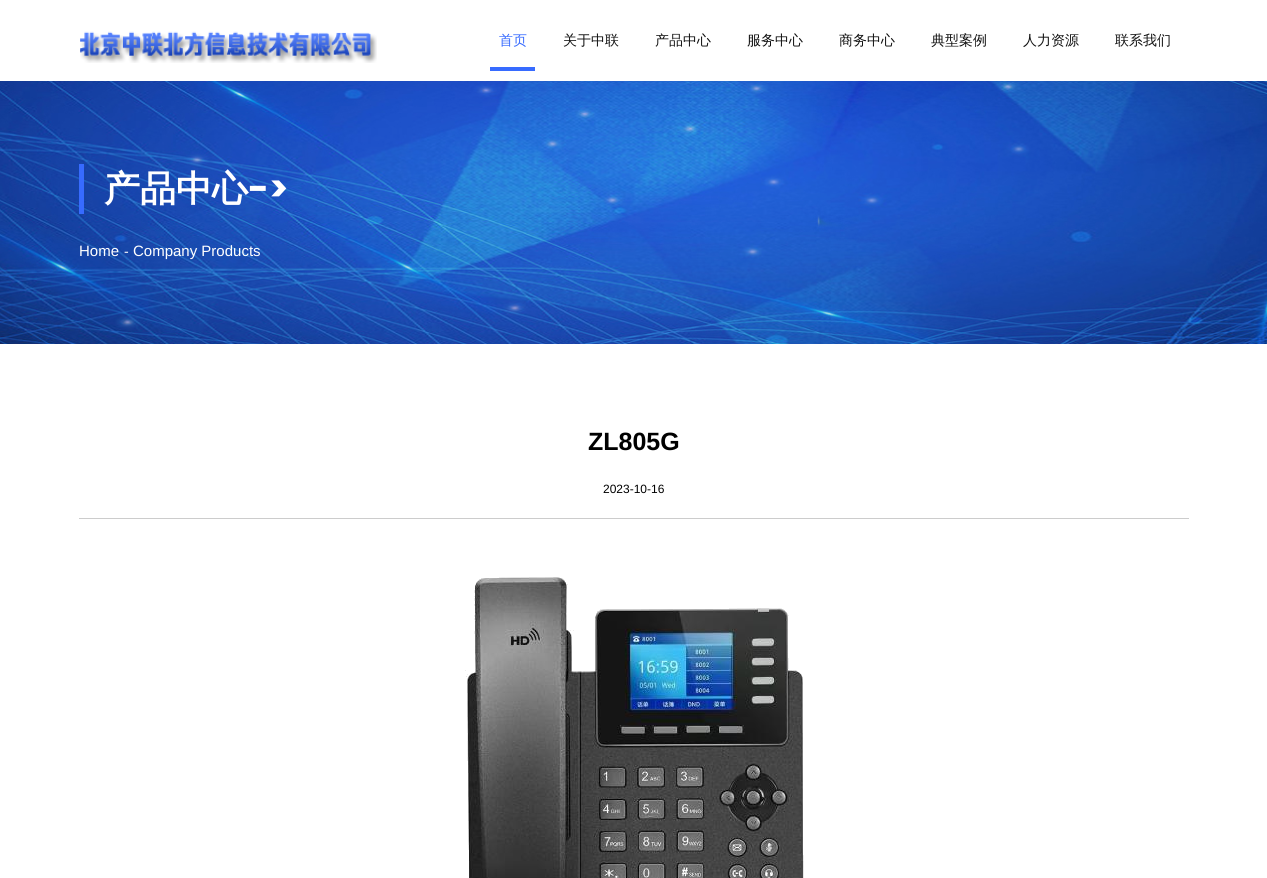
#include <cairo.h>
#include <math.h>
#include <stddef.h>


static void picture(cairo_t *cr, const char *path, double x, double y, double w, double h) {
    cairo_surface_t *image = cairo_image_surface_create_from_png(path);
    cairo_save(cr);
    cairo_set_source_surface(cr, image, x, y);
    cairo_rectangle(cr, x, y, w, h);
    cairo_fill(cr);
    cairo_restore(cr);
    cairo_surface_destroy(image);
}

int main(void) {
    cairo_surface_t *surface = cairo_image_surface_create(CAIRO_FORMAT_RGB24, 1267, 878);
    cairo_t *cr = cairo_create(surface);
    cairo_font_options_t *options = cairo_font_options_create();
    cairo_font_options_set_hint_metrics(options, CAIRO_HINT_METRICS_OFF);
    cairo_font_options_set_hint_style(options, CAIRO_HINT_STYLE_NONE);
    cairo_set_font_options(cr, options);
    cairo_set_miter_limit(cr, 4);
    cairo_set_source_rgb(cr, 1, 1, 1);
    cairo_paint(cr);
    picture(cr, "img1.png", 80, 31, 297, 32);
    cairo_select_font_face(cr, "WenQuanYi Zen Hei Medium", CAIRO_FONT_SLANT_NORMAL, CAIRO_FONT_WEIGHT_NORMAL);
    cairo_set_font_size(cr, 14);
    cairo_set_source_rgb(cr, 0.216, 0.42, 1);
    cairo_move_to(cr, 499, 45);
    cairo_show_text(cr, "首页");
    cairo_rectangle(cr, 490, 67, 45, 4);
    cairo_fill(cr);
    cairo_set_source_rgb(cr, 0.067, 0.067, 0.067);
    cairo_move_to(cr, 563, 45);
    cairo_show_text(cr, "关于中联");
    cairo_move_to(cr, 655, 45);
    cairo_show_text(cr, "产品中心");
    cairo_move_to(cr, 747, 45);
    cairo_show_text(cr, "服务中心");
    cairo_move_to(cr, 839, 45);
    cairo_show_text(cr, "商务中心");
    cairo_move_to(cr, 931, 45);
    cairo_show_text(cr, "典型案例");
    cairo_move_to(cr, 1023, 45);
    cairo_show_text(cr, "人力资源");
    cairo_move_to(cr, 1115, 45);
    cairo_show_text(cr, "联系我们");
    picture(cr, "img2.png", 0, 81, 1267, 263);
    cairo_set_source_rgb(cr, 0.216, 0.42, 1);
    cairo_rectangle(cr, 79, 164, 5, 50);
    cairo_fill(cr);
    cairo_select_font_face(cr, "WenQuanYi Zen Hei", CAIRO_FONT_SLANT_NORMAL, CAIRO_FONT_WEIGHT_BOLD);
    cairo_set_font_size(cr, 36);
    cairo_set_source_rgb(cr, 1, 1, 1);
    cairo_move_to(cr, 104, 201);
    cairo_show_text(cr, "产品中心");
    cairo_select_font_face(cr, "Poppins", CAIRO_FONT_SLANT_NORMAL, CAIRO_FONT_WEIGHT_BOLD);
    cairo_move_to(cr, 248, 201);
    cairo_show_text(cr, "->");
    cairo_select_font_face(cr, "Liberation Sans", CAIRO_FONT_SLANT_NORMAL, CAIRO_FONT_WEIGHT_NORMAL);
    cairo_set_font_size(cr, 15);
    cairo_move_to(cr, 79, 256);
    cairo_show_text(cr, "Home");
    cairo_set_font_size(cr, 14);
    cairo_move_to(cr, 124, 256);
    cairo_show_text(cr, "-");
    cairo_set_font_size(cr, 15);
    cairo_move_to(cr, 133, 256);
    cairo_show_text(cr, "Company Products");
    cairo_select_font_face(cr, "Liberation Sans", CAIRO_FONT_SLANT_NORMAL, CAIRO_FONT_WEIGHT_BOLD);
    cairo_set_font_size(cr, 25);
    cairo_set_source_rgb(cr, 0, 0, 0);
    cairo_move_to(cr, 588, 450);
    cairo_show_text(cr, "ZL805G");
    cairo_set_source_rgb(cr, 0.8, 0.8, 0.8);
    cairo_rectangle(cr, 79, 518, 1110, 1);
    cairo_fill(cr);
    cairo_select_font_face(cr, "Liberation Sans", CAIRO_FONT_SLANT_NORMAL, CAIRO_FONT_WEIGHT_NORMAL);
    cairo_set_font_size(cr, 12);
    cairo_set_source_rgb(cr, 0, 0, 0);
    cairo_move_to(cr, 603, 493);
    cairo_show_text(cr, "2023-10-16");
    picture(cr, "img3.png", 465, 577, 339, 301);
    cairo_surface_write_to_png(surface, "page.png");
    cairo_font_options_destroy(options);
    cairo_destroy(cr);
    cairo_surface_destroy(surface);
    return 0;
}
